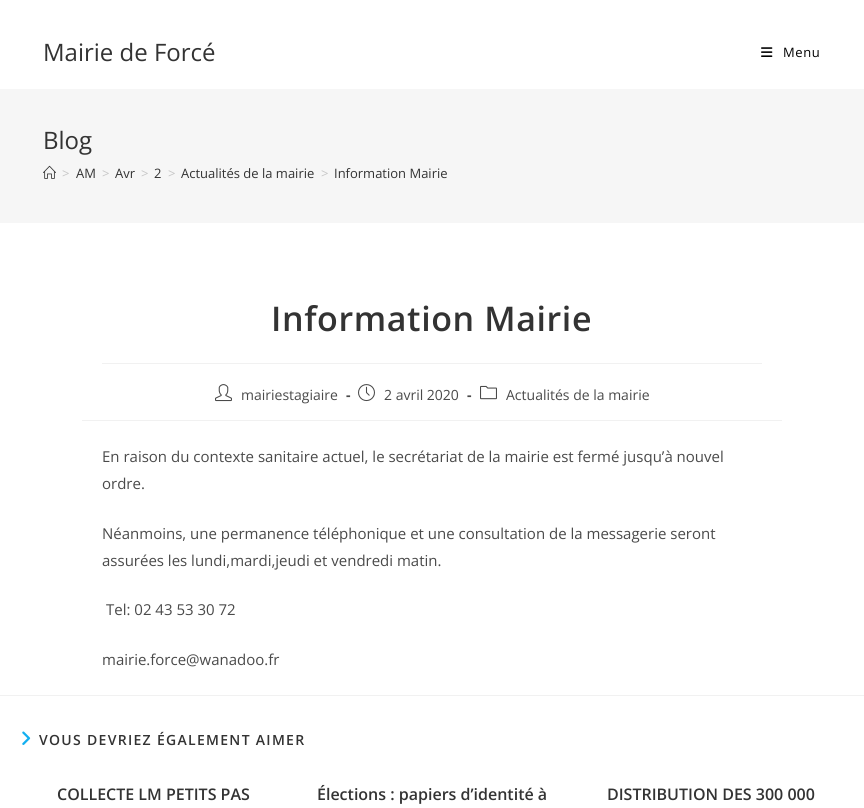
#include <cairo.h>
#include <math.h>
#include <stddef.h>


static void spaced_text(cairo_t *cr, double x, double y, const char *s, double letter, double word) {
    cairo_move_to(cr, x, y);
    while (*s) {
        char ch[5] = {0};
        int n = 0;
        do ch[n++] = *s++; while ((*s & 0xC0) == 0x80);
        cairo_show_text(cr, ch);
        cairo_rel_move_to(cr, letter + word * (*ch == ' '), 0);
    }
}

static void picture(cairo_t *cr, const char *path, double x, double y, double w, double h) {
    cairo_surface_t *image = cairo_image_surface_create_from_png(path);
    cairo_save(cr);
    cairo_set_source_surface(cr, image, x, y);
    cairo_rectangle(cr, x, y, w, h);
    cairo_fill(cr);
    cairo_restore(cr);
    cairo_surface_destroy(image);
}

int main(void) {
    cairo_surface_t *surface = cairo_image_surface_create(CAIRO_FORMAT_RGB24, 864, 808);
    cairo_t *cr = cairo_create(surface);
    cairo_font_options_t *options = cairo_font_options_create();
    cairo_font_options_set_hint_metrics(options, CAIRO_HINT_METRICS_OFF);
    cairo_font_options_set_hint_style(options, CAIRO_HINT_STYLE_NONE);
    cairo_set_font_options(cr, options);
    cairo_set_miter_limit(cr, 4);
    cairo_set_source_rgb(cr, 1, 1, 1);
    cairo_paint(cr);
    cairo_select_font_face(cr, "Open Sans", CAIRO_FONT_SLANT_NORMAL, CAIRO_FONT_WEIGHT_NORMAL);
    cairo_set_font_size(cr, 24);
    cairo_set_source_rgb(cr, 0.2, 0.2, 0.2);
    cairo_move_to(cr, 43, 61);
    cairo_show_text(cr, "Mairie de Forcé");
    picture(cr, "img1.png", 761, 47, 12, 10);
    cairo_set_font_size(cr, 13);
    cairo_set_source_rgb(cr, 0, 0, 0);
    spaced_text(cr, 783, 57, "Menu", 0.6, 0);
    cairo_set_source_rgb(cr, 0.961, 0.961, 0.961);
    cairo_rectangle(cr, 0, 89, 864, 134);
    cairo_fill(cr);
    cairo_set_font_size(cr, 24);
    cairo_set_source_rgb(cr, 0.2, 0.2, 0.2);
    cairo_move_to(cr, 43, 149);
    cairo_show_text(cr, "Blog");
    picture(cr, "img2.png", 43, 165, 13, 14);
    cairo_set_font_size(cr, 13);
    cairo_set_source_rgb(cr, 0.776, 0.776, 0.776);
    cairo_move_to(cr, 62, 178);
    cairo_show_text(cr, ">");
    cairo_set_source_rgb(cr, 0.2, 0.2, 0.2);
    cairo_move_to(cr, 76, 178);
    cairo_show_text(cr, "AM");
    cairo_set_source_rgb(cr, 0.776, 0.776, 0.776);
    cairo_move_to(cr, 102, 178);
    cairo_show_text(cr, ">");
    cairo_set_source_rgb(cr, 0.2, 0.2, 0.2);
    cairo_move_to(cr, 115, 178);
    cairo_show_text(cr, "Avr");
    cairo_set_source_rgb(cr, 0.776, 0.776, 0.776);
    cairo_move_to(cr, 141, 178);
    cairo_show_text(cr, ">");
    cairo_set_source_rgb(cr, 0.2, 0.2, 0.2);
    cairo_move_to(cr, 154, 178);
    cairo_show_text(cr, "2");
    cairo_set_source_rgb(cr, 0.776, 0.776, 0.776);
    cairo_move_to(cr, 168, 178);
    cairo_show_text(cr, ">");
    cairo_set_source_rgb(cr, 0.2, 0.2, 0.2);
    cairo_move_to(cr, 181, 178);
    cairo_show_text(cr, "Actualités de la mairie");
    cairo_set_source_rgb(cr, 0.776, 0.776, 0.776);
    cairo_move_to(cr, 321, 178);
    cairo_show_text(cr, ">");
    cairo_set_source_rgb(cr, 0.2, 0.2, 0.2);
    cairo_move_to(cr, 334, 178);
    cairo_show_text(cr, "Information Mairie");
    cairo_set_source_rgb(cr, 0.945, 0.945, 0.945);
    cairo_rectangle(cr, 102, 363, 660, 1);
    cairo_fill(cr);
    cairo_select_font_face(cr, "Open Sans SemiBold", CAIRO_FONT_SLANT_NORMAL, CAIRO_FONT_WEIGHT_NORMAL);
    cairo_set_font_size(cr, 34);
    cairo_set_source_rgb(cr, 0.2, 0.2, 0.2);
    spaced_text(cr, 271, 331, "Information Mairie", 0.6, 0);
    cairo_set_source_rgb(cr, 0.945, 0.945, 0.945);
    cairo_rectangle(cr, 82, 420, 700, 1);
    cairo_fill(cr);
    picture(cr, "img3.png", 215, 384, 17, 18);
    cairo_select_font_face(cr, "Open Sans", CAIRO_FONT_SLANT_NORMAL, CAIRO_FONT_WEIGHT_NORMAL);
    cairo_set_font_size(cr, 14);
    cairo_set_source_rgb(cr, 0.29, 0.29, 0.29);
    cairo_move_to(cr, 241, 400);
    cairo_show_text(cr, "mairiestagiaire");
    cairo_select_font_face(cr, "Open Sans", CAIRO_FONT_SLANT_NORMAL, CAIRO_FONT_WEIGHT_BOLD);
    cairo_move_to(cr, 346, 400);
    cairo_show_text(cr, "-");
    picture(cr, "img4.png", 358, 384, 17, 18);
    cairo_select_font_face(cr, "Open Sans", CAIRO_FONT_SLANT_NORMAL, CAIRO_FONT_WEIGHT_NORMAL);
    cairo_move_to(cr, 384, 400);
    cairo_show_text(cr, "2 avril 2020");
    cairo_select_font_face(cr, "Open Sans", CAIRO_FONT_SLANT_NORMAL, CAIRO_FONT_WEIGHT_BOLD);
    cairo_move_to(cr, 467, 400);
    cairo_show_text(cr, "-");
    picture(cr, "img5.png", 480, 385, 17, 15);
    cairo_select_font_face(cr, "Open Sans", CAIRO_FONT_SLANT_NORMAL, CAIRO_FONT_WEIGHT_NORMAL);
    cairo_move_to(cr, 506, 400);
    cairo_show_text(cr, "Actualités de la mairie");
    cairo_set_font_size(cr, 15);
    cairo_move_to(cr, 102, 462);
    cairo_show_text(cr, "En raison du contexte sanitaire actuel, le secrétariat de la mairie est fermé jusqu’à nouvel");
    cairo_move_to(cr, 102, 489);
    cairo_show_text(cr, "ordre.");
    cairo_move_to(cr, 102, 539);
    cairo_show_text(cr, "Néanmoins, une permanence téléphonique et une consultation de la messagerie seront");
    cairo_move_to(cr, 102, 566);
    cairo_show_text(cr, "assurées les lundi,mardi,jeudi et vendredi matin.");
    cairo_move_to(cr, 106, 615);
    cairo_show_text(cr, "Tel: 02 43 53 30 72");
    cairo_move_to(cr, 102, 665);
    cairo_show_text(cr, "mairie.force@wanadoo.fr");
    cairo_set_source_rgb(cr, 0.945, 0.945, 0.945);
    cairo_rectangle(cr, 0, 695, 864, 1);
    cairo_fill(cr);
    picture(cr, "img6.png", 22, 731, 9, 14);
    cairo_select_font_face(cr, "Open Sans SemiBold", CAIRO_FONT_SLANT_NORMAL, CAIRO_FONT_WEIGHT_NORMAL);
    cairo_set_font_size(cr, 14);
    cairo_set_source_rgb(cr, 0.2, 0.2, 0.2);
    spaced_text(cr, 39, 745, "VOUS DEVRIEZ ÉGALEMENT AIMER", 1.3, 0);
    cairo_set_font_size(cr, 16);
    cairo_move_to(cr, 57, 800);
    cairo_show_text(cr, "COLLECTE LM PETITS PAS");
    cairo_move_to(cr, 317, 800);
    cairo_show_text(cr, "Élections : papiers d’identité à");
    cairo_move_to(cr, 607, 800);
    cairo_show_text(cr, "DISTRIBUTION DES 300 000");
    cairo_surface_write_to_png(surface, "page.png");
    cairo_font_options_destroy(options);
    cairo_destroy(cr);
    cairo_surface_destroy(surface);
    return 0;
}
